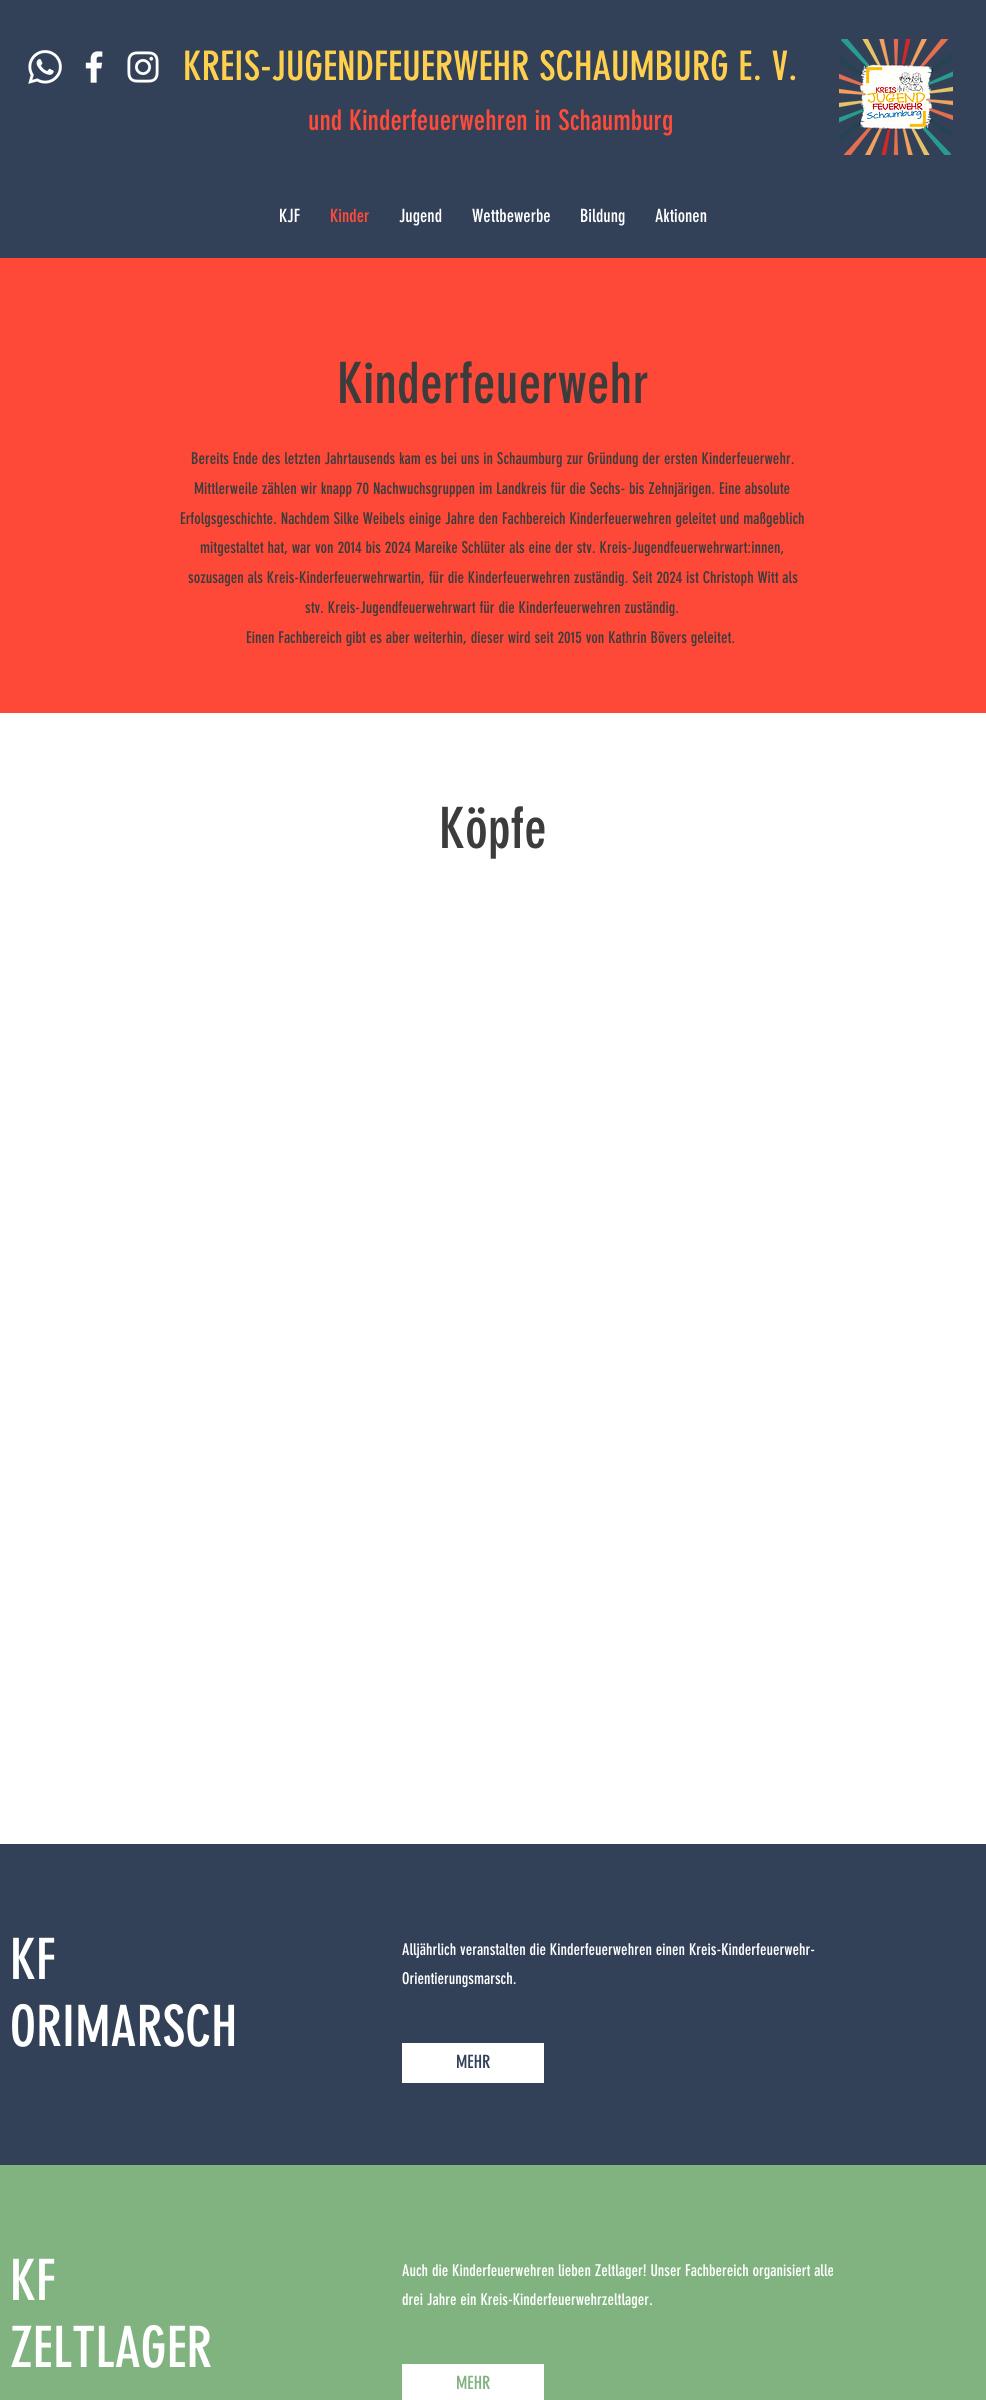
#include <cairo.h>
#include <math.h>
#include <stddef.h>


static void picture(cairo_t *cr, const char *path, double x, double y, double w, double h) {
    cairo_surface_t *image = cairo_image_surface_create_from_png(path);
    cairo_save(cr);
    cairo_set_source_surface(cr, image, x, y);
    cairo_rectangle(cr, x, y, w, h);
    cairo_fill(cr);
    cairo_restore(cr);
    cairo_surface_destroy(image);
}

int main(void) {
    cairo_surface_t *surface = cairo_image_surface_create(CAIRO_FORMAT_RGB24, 986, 2400);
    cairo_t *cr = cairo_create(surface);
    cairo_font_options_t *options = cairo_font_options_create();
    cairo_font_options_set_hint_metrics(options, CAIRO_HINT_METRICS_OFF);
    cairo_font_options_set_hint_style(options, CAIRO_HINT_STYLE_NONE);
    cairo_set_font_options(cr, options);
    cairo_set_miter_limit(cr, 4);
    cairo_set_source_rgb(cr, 0.196, 0.255, 0.345);
    cairo_paint(cr);
    picture(cr, "img1.png", 28, 50, 34, 34);
    picture(cr, "img2.png", 85, 51, 18, 32);
    picture(cr, "img3.png", 127, 51, 32, 32);
    cairo_select_font_face(cr, "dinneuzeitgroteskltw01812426", CAIRO_FONT_SLANT_NORMAL, CAIRO_FONT_WEIGHT_NORMAL);
    cairo_set_font_size(cr, 40);
    cairo_set_source_rgb(cr, 1, 0.816, 0.306);
    cairo_move_to(cr, 183, 80);
    cairo_show_text(cr, "KREIS-JUGENDFEUERWEHR SCHAUMBURG E. V.");
    cairo_set_font_size(cr, 28);
    cairo_set_source_rgb(cr, 1, 0.294, 0.224);
    cairo_move_to(cr, 308, 130);
    cairo_show_text(cr, "und Kinderfeuerwehren in Schaumburg");
    picture(cr, "img4.png", 839, 39, 114, 116);
    cairo_set_font_size(cr, 18);
    cairo_set_source_rgb(cr, 1, 1, 1);
    cairo_move_to(cr, 279, 222);
    cairo_show_text(cr, "KJF");
    cairo_set_source_rgb(cr, 1, 0.294, 0.224);
    cairo_move_to(cr, 330, 222);
    cairo_show_text(cr, "Kinder");
    cairo_set_source_rgb(cr, 1, 1, 1);
    cairo_move_to(cr, 399, 222);
    cairo_show_text(cr, "Jugend");
    cairo_move_to(cr, 472, 222);
    cairo_show_text(cr, "Wettbewerbe");
    cairo_move_to(cr, 580, 222);
    cairo_show_text(cr, "Bildung");
    cairo_move_to(cr, 655, 222);
    cairo_show_text(cr, "Aktionen");
    cairo_set_source_rgb(cr, 1, 0.286, 0.22);
    cairo_rectangle(cr, 0, 258, 986, 455);
    cairo_fill(cr);
    cairo_set_font_size(cr, 56);
    cairo_set_source_rgb(cr, 0.235, 0.235, 0.235);
    cairo_move_to(cr, 337, 403);
    cairo_show_text(cr, "Kinderfeuerwehr");
    cairo_set_font_size(cr, 16);
    cairo_move_to(cr, 191, 464);
    cairo_show_text(cr, "Bereits Ende des letzten Jahrtausends kam es bei uns in Schaumburg zur Gründung der ersten Kinderfeuerwehr.");
    cairo_move_to(cr, 194, 494);
    cairo_show_text(cr, "Mittlerweile zählen wir knapp 70 Nachwuchsgruppen im Landkreis für die Sechs- bis Zehnjärigen. Eine absolute");
    cairo_move_to(cr, 180, 524);
    cairo_show_text(cr, "Erfolgsgeschichte. Nachdem Silke Weibels einige Jahre den Fachbereich Kinderfeuerwehren geleitet und maßgeblich");
    cairo_move_to(cr, 200, 553);
    cairo_show_text(cr, "mitgestaltet hat, war von 2014 bis 2024 Mareike Schlüter als eine der stv. Kreis-Jugendfeuerwehrwart:innen,");
    cairo_move_to(cr, 188, 583);
    cairo_show_text(cr, "sozusagen als Kreis-Kinderfeuerwehrwartin, für die Kinderfeuerwehren zuständig. Seit 2024 ist Christoph Witt als");
    cairo_move_to(cr, 305, 613);
    cairo_show_text(cr, "stv. Kreis-Jugendfeuerwehrwart für die Kinderfeuerwehren zuständig.");
    cairo_move_to(cr, 246, 643);
    cairo_show_text(cr, "Einen Fachbereich gibt es aber weiterhin, dieser wird seit 2015 von Kathrin Bövers geleitet.");
    cairo_set_source_rgb(cr, 1, 1, 1);
    cairo_rectangle(cr, 0, 713, 986, 1131);
    cairo_fill(cr);
    cairo_set_font_size(cr, 56);
    cairo_set_source_rgb(cr, 0.235, 0.235, 0.235);
    cairo_move_to(cr, 439, 848);
    cairo_show_text(cr, "Köpfe");
    cairo_set_source_rgb(cr, 1, 1, 1);
    cairo_move_to(cr, 10, 1979);
    cairo_show_text(cr, "KF");
    cairo_move_to(cr, 10, 2046);
    cairo_show_text(cr, "ORIMARSCH");
    cairo_set_font_size(cr, 16);
    cairo_move_to(cr, 402, 1955);
    cairo_show_text(cr, "Alljährlich veranstalten die Kinderfeuerwehren einen Kreis-Kinderfeuerwehr-");
    cairo_move_to(cr, 402, 1984);
    cairo_show_text(cr, "Orientierungsmarsch.");
    cairo_rectangle(cr, 402, 2043, 142, 40);
    cairo_fill(cr);
    cairo_set_font_size(cr, 18);
    cairo_set_source_rgb(cr, 0.196, 0.255, 0.345);
    cairo_move_to(cr, 456, 2068);
    cairo_show_text(cr, "MEHR");
    cairo_set_source_rgb(cr, 0.502, 0.702, 0.502);
    cairo_rectangle(cr, 0, 2165, 986, 235);
    cairo_fill(cr);
    cairo_set_font_size(cr, 56);
    cairo_set_source_rgb(cr, 1, 1, 1);
    cairo_move_to(cr, 10, 2300);
    cairo_show_text(cr, "KF");
    cairo_move_to(cr, 10, 2367);
    cairo_show_text(cr, "ZELTLAGER");
    cairo_set_font_size(cr, 16);
    cairo_move_to(cr, 402, 2276);
    cairo_show_text(cr, "Auch die Kinderfeuerwehren lieben Zeltlager! Unser Fachbereich organisiert alle");
    cairo_move_to(cr, 402, 2305);
    cairo_show_text(cr, "drei Jahre ein Kreis-Kinderfeuerwehrzeltlager.");
    cairo_rectangle(cr, 402, 2364, 142, 36);
    cairo_fill(cr);
    cairo_set_font_size(cr, 18);
    cairo_set_source_rgb(cr, 0.502, 0.702, 0.502);
    cairo_move_to(cr, 456, 2389);
    cairo_show_text(cr, "MEHR");
    cairo_surface_write_to_png(surface, "page.png");
    cairo_font_options_destroy(options);
    cairo_destroy(cr);
    cairo_surface_destroy(surface);
    return 0;
}
